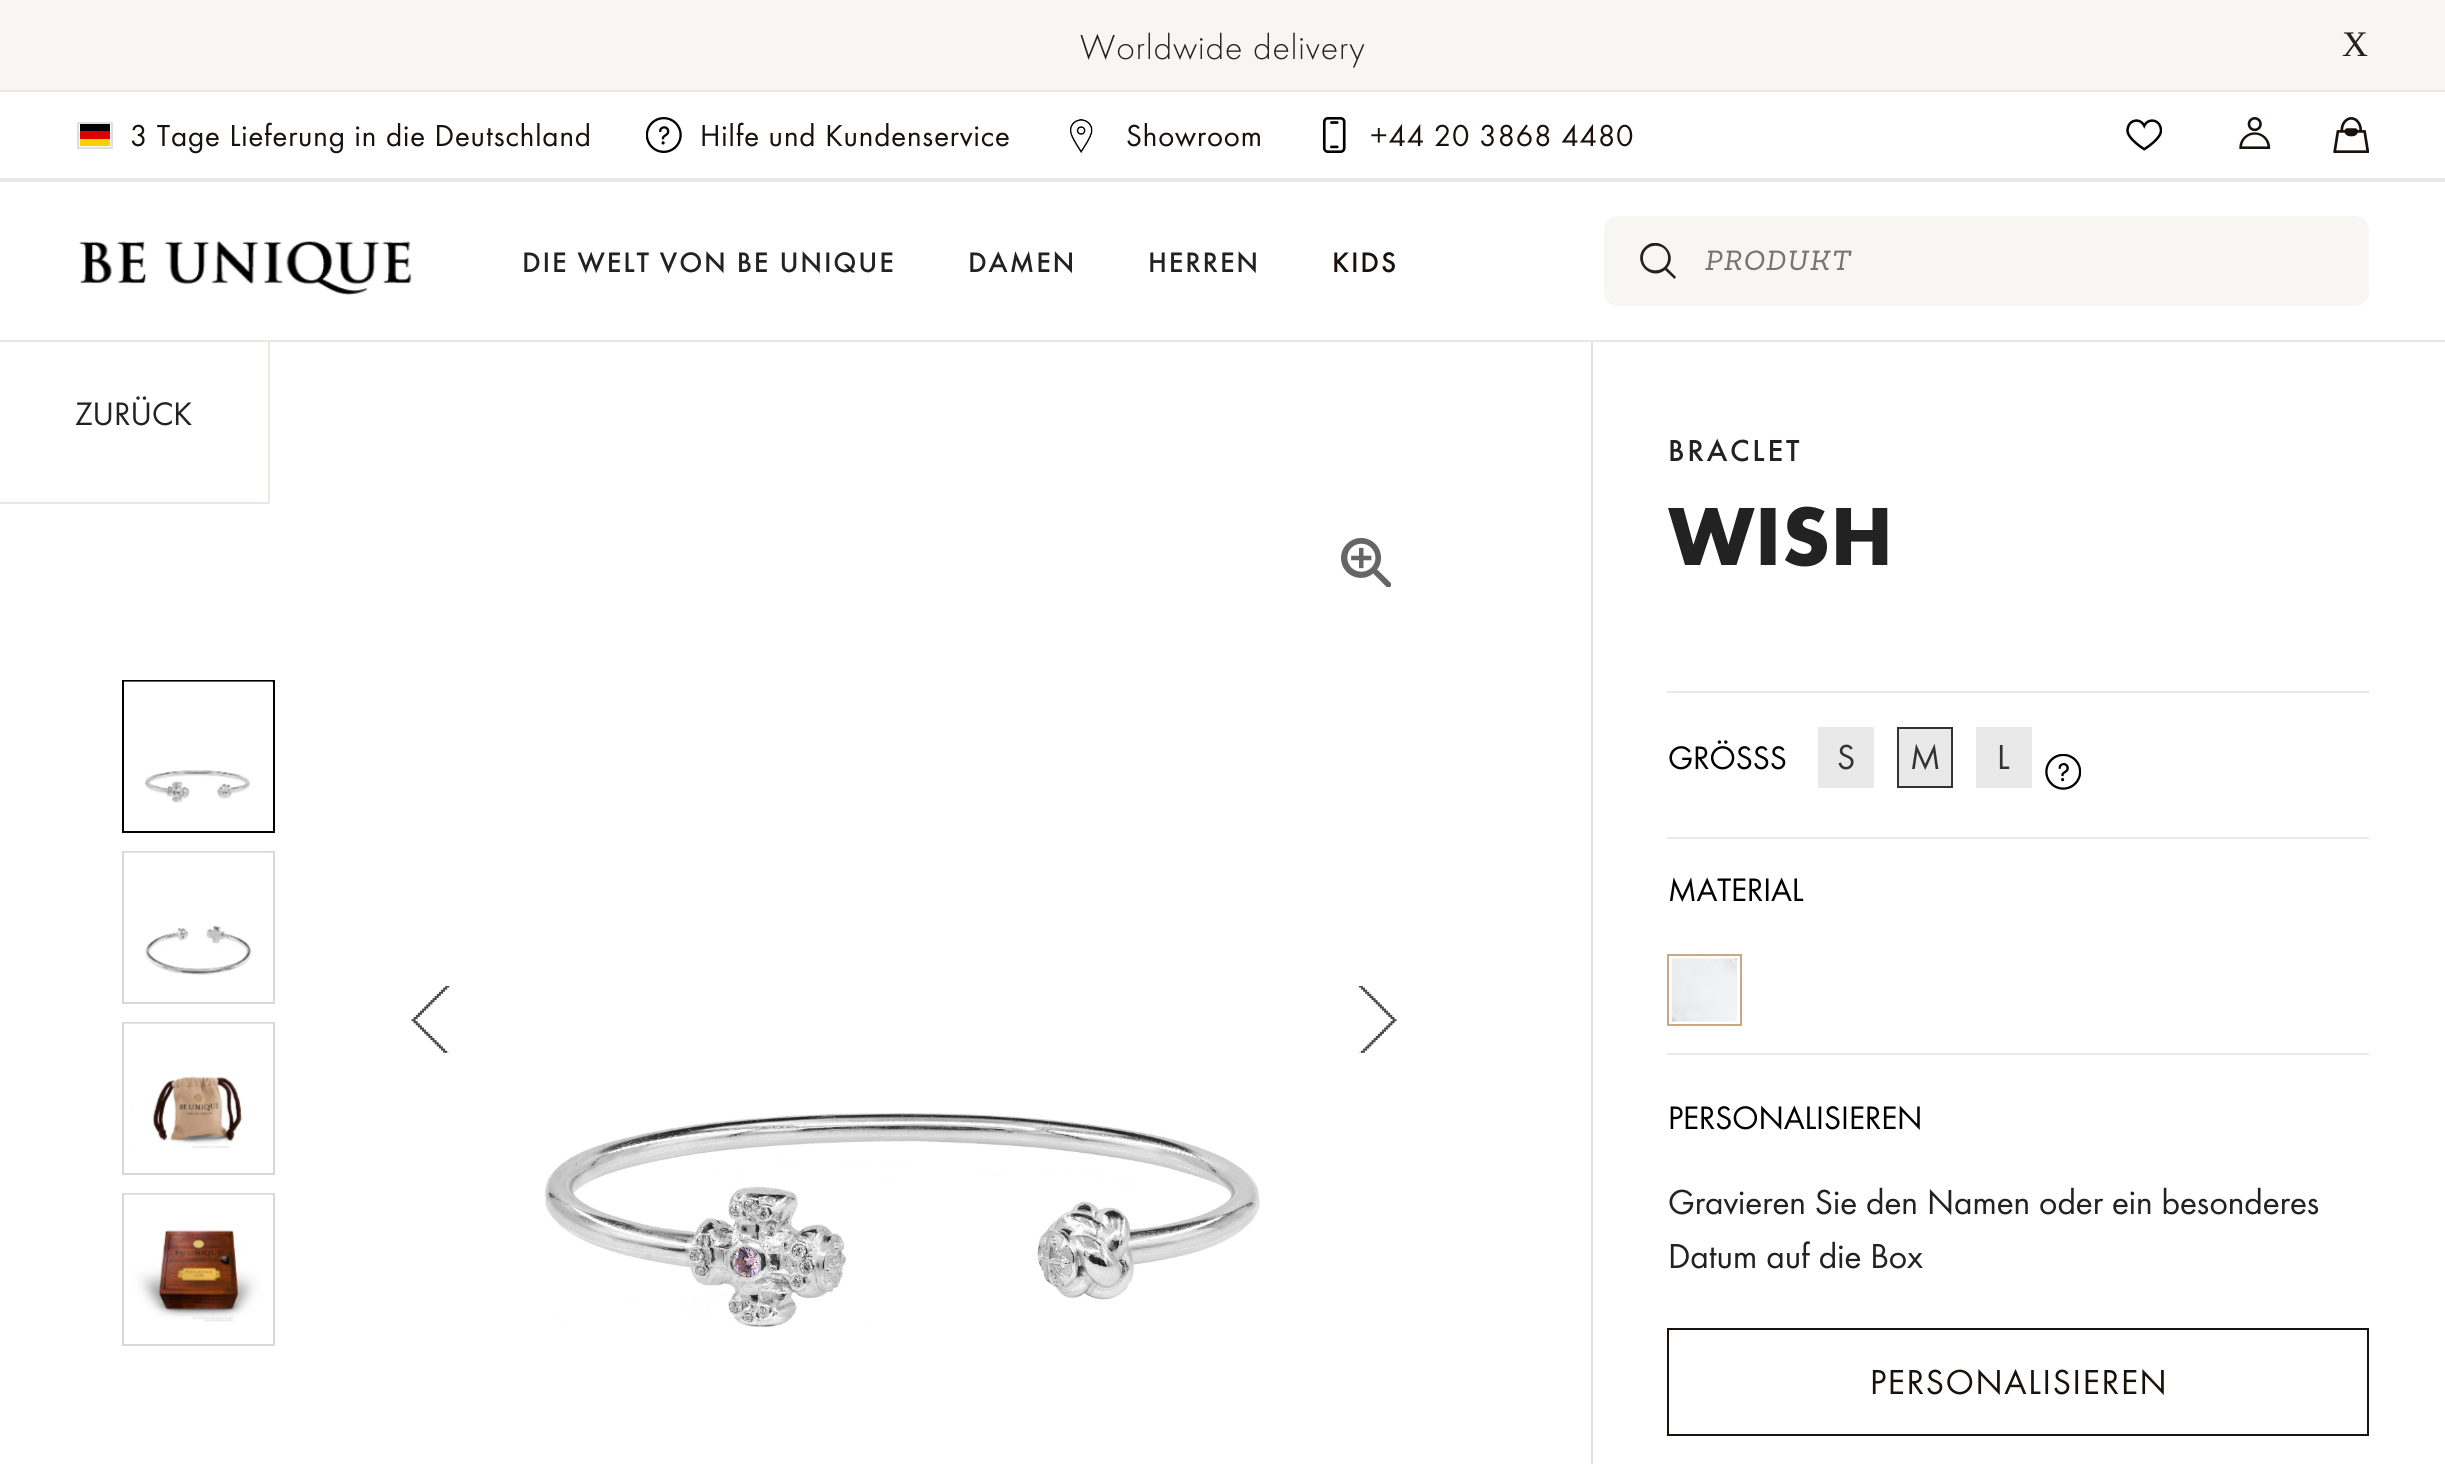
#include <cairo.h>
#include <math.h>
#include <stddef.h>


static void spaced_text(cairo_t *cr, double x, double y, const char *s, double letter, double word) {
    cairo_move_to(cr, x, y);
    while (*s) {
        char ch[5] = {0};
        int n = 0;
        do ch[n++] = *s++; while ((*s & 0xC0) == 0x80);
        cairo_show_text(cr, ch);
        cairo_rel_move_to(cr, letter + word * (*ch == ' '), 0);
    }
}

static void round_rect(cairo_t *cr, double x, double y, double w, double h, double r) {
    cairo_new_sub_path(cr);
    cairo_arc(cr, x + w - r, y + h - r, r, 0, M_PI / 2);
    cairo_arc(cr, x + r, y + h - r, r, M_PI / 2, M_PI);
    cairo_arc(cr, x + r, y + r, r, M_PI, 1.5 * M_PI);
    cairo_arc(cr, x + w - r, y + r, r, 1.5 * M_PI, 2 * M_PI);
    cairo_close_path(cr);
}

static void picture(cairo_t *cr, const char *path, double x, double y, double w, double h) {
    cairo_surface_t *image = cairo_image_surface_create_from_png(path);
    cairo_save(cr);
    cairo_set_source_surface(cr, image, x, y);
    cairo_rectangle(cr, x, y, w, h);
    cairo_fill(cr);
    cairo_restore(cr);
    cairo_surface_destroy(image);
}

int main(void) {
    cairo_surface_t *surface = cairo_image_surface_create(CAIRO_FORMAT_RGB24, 2445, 1464);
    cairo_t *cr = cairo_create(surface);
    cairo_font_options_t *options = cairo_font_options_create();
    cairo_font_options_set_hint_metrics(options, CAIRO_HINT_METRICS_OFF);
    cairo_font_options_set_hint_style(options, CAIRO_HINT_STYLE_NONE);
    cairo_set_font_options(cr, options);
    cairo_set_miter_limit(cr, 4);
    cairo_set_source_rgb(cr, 1, 1, 1);
    cairo_paint(cr);
    cairo_set_source_rgb(cr, 0.965, 0.961, 0.953);
    cairo_rectangle(cr, 0, 0, 2445, 90);
    cairo_fill(cr);
    cairo_select_font_face(cr, "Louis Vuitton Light", CAIRO_FONT_SLANT_NORMAL, CAIRO_FONT_WEIGHT_NORMAL);
    cairo_set_font_size(cr, 36);
    cairo_set_source_rgb(cr, 0.133, 0.133, 0.133);
    spaced_text(cr, 1080, 59, "Worldwide delivery", 0.9, 0);
    cairo_select_font_face(cr, "Liberation Serif", CAIRO_FONT_SLANT_NORMAL, CAIRO_FONT_WEIGHT_NORMAL);
    spaced_text(cr, 2342, 56, "X", 0.9, 0);
    cairo_set_source_rgb(cr, 0.918, 0.91, 0.894);
    cairo_rectangle(cr, 0, 178, 2445, 4);
    cairo_fill(cr);
    cairo_rectangle(cr, 0, 90, 2445, 2);
    cairo_fill(cr);
    cairo_rectangle(cr, 78, 123, 34, 25);
    cairo_set_source_rgb(cr, 0.882, 0.875, 0.847);
    cairo_stroke(cr);
    cairo_set_source_rgb(cr, 1, 0.808, 0);
    cairo_rectangle(cr, 80, 139, 30, 7);
    cairo_fill(cr);
    cairo_set_source_rgb(cr, 0, 0, 0);
    cairo_rectangle(cr, 80, 124, 30, 7);
    cairo_fill(cr);
    cairo_set_source_rgb(cr, 0.867, 0, 0);
    cairo_rectangle(cr, 80, 131, 30, 8);
    cairo_fill(cr);
    cairo_select_font_face(cr, "Louis Vuitton", CAIRO_FONT_SLANT_NORMAL, CAIRO_FONT_WEIGHT_NORMAL);
    cairo_set_font_size(cr, 31.5);
    cairo_set_source_rgb(cr, 0.098, 0.067, 0.043);
    spaced_text(cr, 130, 146, "3 Tage Lieferung in die Deutschland", 0.9, 0);
    picture(cr, "img1.png", 646, 117, 36, 36);
    spaced_text(cr, 700, 146, "Hilfe und Kundenservice", 0.9, 0);
    picture(cr, "img2.png", 1070, 119, 23, 34);
    spaced_text(cr, 1126, 146, "Showroom", 0.9, 0);
    picture(cr, "img3.png", 1322, 117, 24, 36);
    spaced_text(cr, 1370, 146, "+44 20 3868 4480", 0.9, 0);
    picture(cr, "img4.png", 2126, 119, 36, 32);
    picture(cr, "img5.png", 2239, 117, 32, 32);
    picture(cr, "img6.png", 2333, 117, 36, 36);
    cairo_set_source_rgb(cr, 0.918, 0.91, 0.894);
    cairo_rectangle(cr, 0, 340, 2445, 2);
    cairo_fill(cr);
    picture(cr, "img7.png", 79, 241, 333, 54);
    cairo_select_font_face(cr, "Louis Vuitton Medium", CAIRO_FONT_SLANT_NORMAL, CAIRO_FONT_WEIGHT_NORMAL);
    cairo_set_font_size(cr, 29.25);
    cairo_set_source_rgb(cr, 0.133, 0.133, 0.133);
    spaced_text(cr, 522, 272, "DIE WELT VON BE UNIQUE", 1.8, 0);
    spaced_text(cr, 968, 272, "DAMEN", 1.8, 0);
    spaced_text(cr, 1148, 272, "HERREN", 1.8, 0);
    cairo_set_source_rgb(cr, 0.098, 0.067, 0.043);
    spaced_text(cr, 1332, 272, "KIDS", 1.8, 0);
    cairo_set_source_rgb(cr, 0.965, 0.961, 0.953);
    round_rect(cr, 1604, 216, 765, 90, 14);
    cairo_fill(cr);
    cairo_save(cr);
    cairo_rectangle(cr, 1640, 243, 36, 36);
    cairo_clip(cr);
    cairo_set_source_rgb(cr, 0.133, 0.133, 0.133);
    cairo_set_fill_rule(cr, CAIRO_FILL_RULE_EVEN_ODD);
    cairo_new_path(cr);
    cairo_move_to(cr, 1667, 268);
    cairo_curve_to(cr, 1679.5, 253.5, 1658.5, 234, 1645, 247);
    cairo_curve_to(cr, 1631, 260.5, 1650, 282, 1665, 270);
    cairo_line_to(cr, 1674.5, 279);
    cairo_line_to(cr, 1676, 277);
    cairo_close_path(cr);
    cairo_move_to(cr, 1668, 258);
    cairo_curve_to(cr, 1668, 274, 1644, 274.5, 1643, 259);
    cairo_curve_to(cr, 1642, 242, 1668, 241, 1668, 258);
    cairo_close_path(cr);
    cairo_fill(cr);
    cairo_restore(cr);
    cairo_select_font_face(cr, "Sanchez", CAIRO_FONT_SLANT_ITALIC, CAIRO_FONT_WEIGHT_NORMAL);
    cairo_set_font_size(cr, 27);
    cairo_set_source_rgb(cr, 0.459, 0.459, 0.459);
    spaced_text(cr, 1704, 270, "PRODUKT", 0.9, 0);
    cairo_set_source_rgb(cr, 0.918, 0.91, 0.894);
    cairo_rectangle(cr, 268, 342, 2, 162);
    cairo_fill(cr);
    cairo_rectangle(cr, 0, 502, 270, 2);
    cairo_fill(cr);
    cairo_select_font_face(cr, "Louis Vuitton", CAIRO_FONT_SLANT_NORMAL, CAIRO_FONT_WEIGHT_NORMAL);
    cairo_set_font_size(cr, 33.75);
    cairo_set_source_rgb(cr, 0.133, 0.133, 0.133);
    cairo_move_to(cr, 75, 425);
    cairo_show_text(cr, "ZURÜCK");
    cairo_rectangle(cr, 123, 681, 151, 151);
    cairo_set_source_rgb(cr, 0, 0, 0);
    cairo_stroke(cr);
    picture(cr, "img8.png", 124, 681, 149, 122);
    cairo_rectangle(cr, 123, 852, 151, 151);
    cairo_set_source_rgb(cr, 0.847, 0.847, 0.847);
    cairo_stroke(cr);
    picture(cr, "img9.png", 124, 852, 149, 123);
    cairo_rectangle(cr, 123, 1023, 151, 151);
    cairo_stroke(cr);
    picture(cr, "img10.png", 124, 1023, 149, 126);
    cairo_rectangle(cr, 123, 1194, 151, 151);
    cairo_stroke(cr);
    picture(cr, "img11.png", 124, 1194, 149, 128);
    picture(cr, "img12.png", 411, 986, 39, 67);
    picture(cr, "img13.png", 1341, 538, 50, 49);
    picture(cr, "img14.png", 545, 1113, 715, 215);
    picture(cr, "img15.png", 1358, 986, 39, 67);
    cairo_set_source_rgb(cr, 0.886, 0.886, 0.886);
    cairo_rectangle(cr, 1591, 342, 2, 1122);
    cairo_fill(cr);
    cairo_select_font_face(cr, "Louis Vuitton Medium", CAIRO_FONT_SLANT_NORMAL, CAIRO_FONT_WEIGHT_NORMAL);
    cairo_set_font_size(cr, 31.5);
    cairo_set_source_rgb(cr, 0.133, 0.133, 0.133);
    spaced_text(cr, 1668, 461, "BRACLET", 2.75, 0);
    cairo_select_font_face(cr, "Louis Vuitton", CAIRO_FONT_SLANT_NORMAL, CAIRO_FONT_WEIGHT_BOLD);
    cairo_set_font_size(cr, 85.5);
    cairo_move_to(cr, 1668, 565);
    cairo_show_text(cr, "WISH");
    cairo_set_source_rgb(cr, 0.918, 0.91, 0.894);
    cairo_rectangle(cr, 1667, 691, 702, 2);
    cairo_fill(cr);
    cairo_rectangle(cr, 1667, 837, 702, 2);
    cairo_fill(cr);
    cairo_select_font_face(cr, "Louis Vuitton", CAIRO_FONT_SLANT_NORMAL, CAIRO_FONT_WEIGHT_NORMAL);
    cairo_set_font_size(cr, 33.75);
    cairo_set_source_rgb(cr, 0, 0, 0);
    cairo_move_to(cr, 1668, 769);
    cairo_show_text(cr, "GRÖSSS");
    cairo_set_source_rgb(cr, 0.914, 0.914, 0.914);
    cairo_rectangle(cr, 1818, 727, 56, 61);
    cairo_fill(cr);
    cairo_set_font_size(cr, 36);
    cairo_set_source_rgb(cr, 0.2, 0.2, 0.2);
    cairo_move_to(cr, 1837, 769);
    cairo_show_text(cr, "S");
    cairo_set_source_rgb(cr, 0.914, 0.914, 0.914);
    cairo_rectangle(cr, 1898, 728, 54, 59);
    cairo_fill_preserve(cr);
    cairo_set_source_rgb(cr, 0.2, 0.2, 0.2);
    cairo_stroke(cr);
    cairo_move_to(cr, 1910, 769);
    cairo_show_text(cr, "M");
    cairo_set_source_rgb(cr, 0.914, 0.914, 0.914);
    cairo_rectangle(cr, 1976, 727, 56, 61);
    cairo_fill(cr);
    cairo_set_source_rgb(cr, 0.2, 0.2, 0.2);
    cairo_move_to(cr, 1997, 769);
    cairo_show_text(cr, "L");
    picture(cr, "img16.png", 2045, 754, 36, 36);
    cairo_set_source_rgb(cr, 0.918, 0.91, 0.894);
    cairo_rectangle(cr, 1667, 1053, 702, 2);
    cairo_fill(cr);
    cairo_set_font_size(cr, 33.75);
    cairo_set_source_rgb(cr, 0, 0, 0);
    cairo_move_to(cr, 1668, 901);
    cairo_show_text(cr, "MATERIAL");
    picture(cr, "img17.png", 1671, 958, 66, 64);
    cairo_rectangle(cr, 1668, 955, 73, 70);
    cairo_set_source_rgb(cr, 0.784, 0.663, 0.522);
    cairo_stroke(cr);
    cairo_set_source_rgb(cr, 0, 0, 0);
    cairo_move_to(cr, 1668, 1129);
    cairo_show_text(cr, "PERSONALISIEREN");
    cairo_set_font_size(cr, 36);
    cairo_set_source_rgb(cr, 0.133, 0.133, 0.133);
    cairo_move_to(cr, 1668, 1214);
    cairo_show_text(cr, "Gravieren Sie den Namen oder ein besonderes");
    cairo_move_to(cr, 1668, 1268);
    cairo_show_text(cr, "Datum auf die Box");
    cairo_rectangle(cr, 1668, 1329, 700, 106);
    cairo_set_source_rgb(cr, 0.098, 0.067, 0.043);
    cairo_stroke(cr);
    spaced_text(cr, 1870, 1394, "PERSONALISIEREN", 1.8, 0);
    cairo_surface_write_to_png(surface, "page.png");
    cairo_font_options_destroy(options);
    cairo_destroy(cr);
    cairo_surface_destroy(surface);
    return 0;
}
